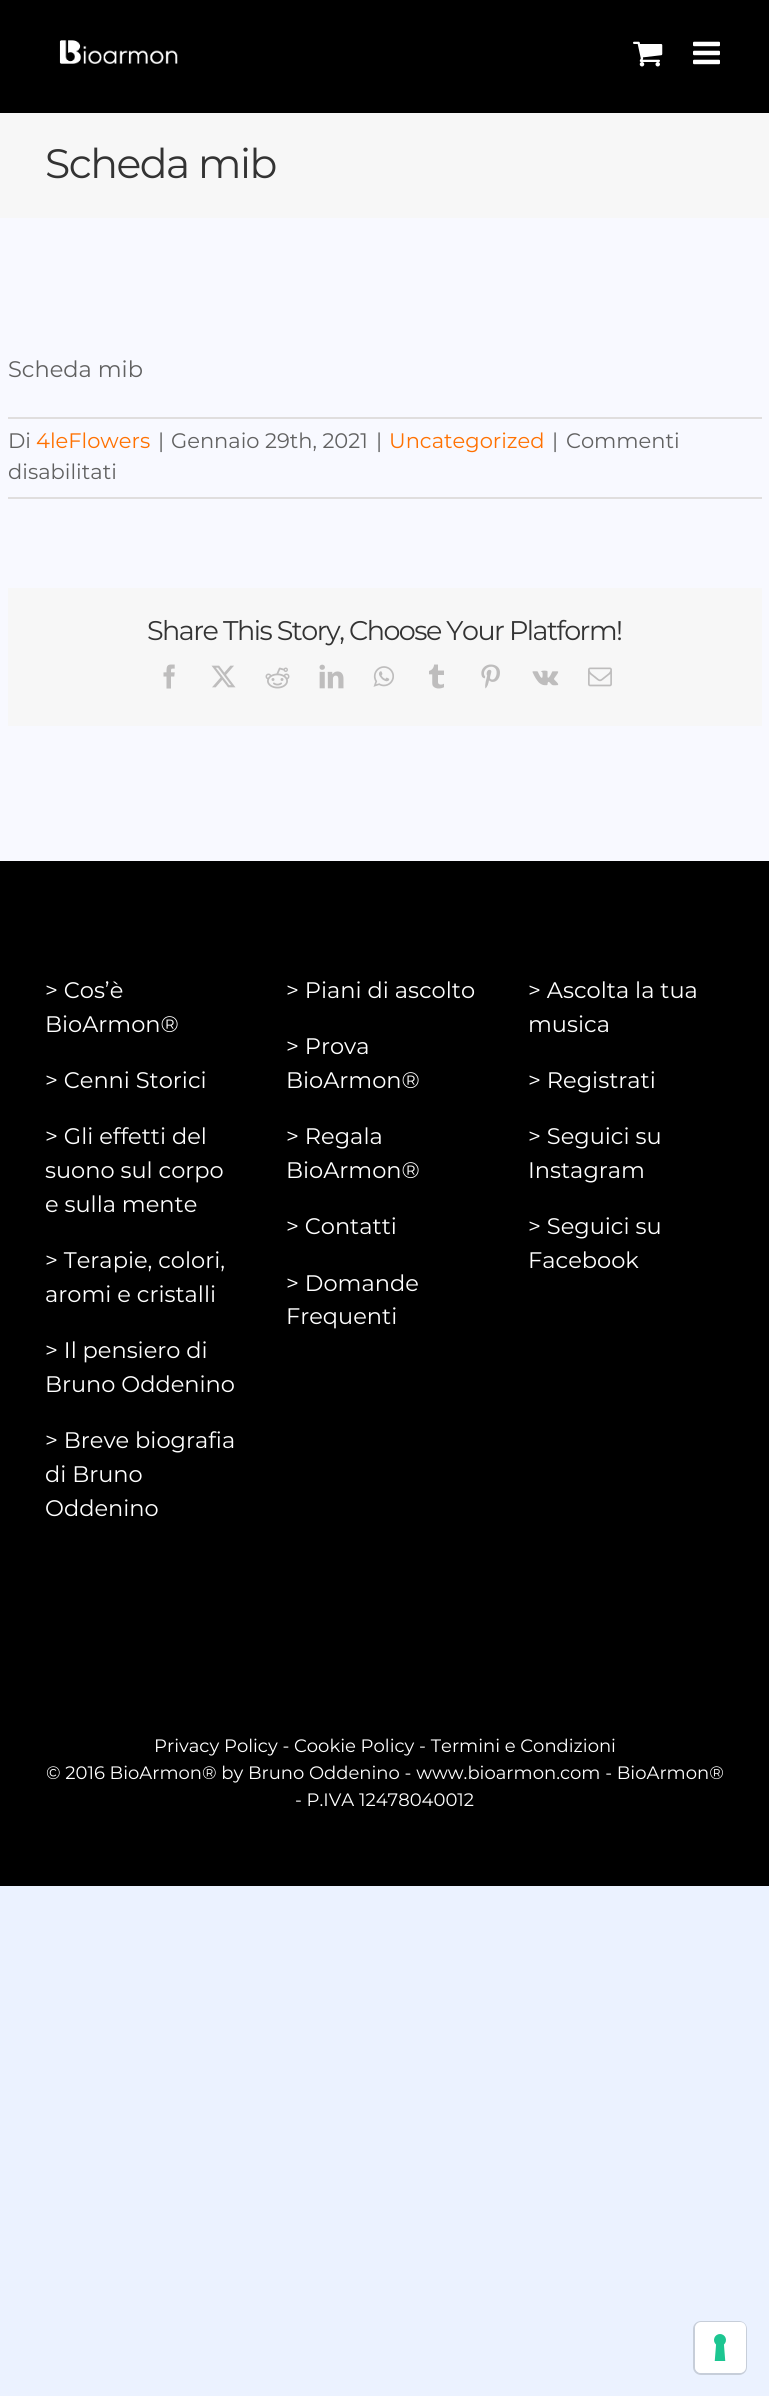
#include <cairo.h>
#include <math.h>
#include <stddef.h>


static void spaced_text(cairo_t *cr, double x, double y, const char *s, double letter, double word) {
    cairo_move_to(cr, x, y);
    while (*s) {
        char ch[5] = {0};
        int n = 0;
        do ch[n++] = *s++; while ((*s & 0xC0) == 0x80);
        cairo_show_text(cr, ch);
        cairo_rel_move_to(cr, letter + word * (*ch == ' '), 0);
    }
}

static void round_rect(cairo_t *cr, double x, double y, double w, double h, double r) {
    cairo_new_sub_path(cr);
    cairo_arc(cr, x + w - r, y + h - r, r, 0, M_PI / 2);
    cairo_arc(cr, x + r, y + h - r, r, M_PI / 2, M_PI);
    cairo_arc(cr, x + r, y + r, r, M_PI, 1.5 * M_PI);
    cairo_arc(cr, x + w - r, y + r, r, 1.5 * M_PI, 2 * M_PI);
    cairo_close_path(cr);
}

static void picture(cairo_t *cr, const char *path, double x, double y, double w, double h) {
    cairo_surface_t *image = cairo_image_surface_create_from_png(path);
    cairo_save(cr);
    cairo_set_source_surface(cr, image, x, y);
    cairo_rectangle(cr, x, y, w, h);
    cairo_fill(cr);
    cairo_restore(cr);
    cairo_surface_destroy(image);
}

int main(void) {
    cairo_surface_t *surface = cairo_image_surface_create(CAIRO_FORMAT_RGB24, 769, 2396);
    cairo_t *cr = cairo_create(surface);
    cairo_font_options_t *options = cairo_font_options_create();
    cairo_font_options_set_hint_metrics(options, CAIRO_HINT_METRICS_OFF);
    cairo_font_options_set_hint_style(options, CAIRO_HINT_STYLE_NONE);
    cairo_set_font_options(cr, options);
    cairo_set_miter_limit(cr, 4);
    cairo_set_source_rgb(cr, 0.918, 0.949, 1);
    cairo_paint(cr);
    cairo_set_source_rgb(cr, 0.969, 0.976, 1);
    cairo_rectangle(cr, 0, 218, 769, 643);
    cairo_fill(cr);
    cairo_set_source_rgb(cr, 0, 0, 0);
    cairo_rectangle(cr, 0, 0, 769, 113);
    cairo_fill(cr);
    picture(cr, "img1.png", 59, 40, 119, 24);
    picture(cr, "img2.png", 633, 41, 30, 26);
    picture(cr, "img3.png", 693, 41, 27, 24);
    cairo_set_source_rgb(cr, 0.965, 0.965, 0.965);
    cairo_rectangle(cr, 0, 113, 769, 105);
    cairo_fill(cr);
    cairo_select_font_face(cr, "Montserrat", CAIRO_FONT_SLANT_NORMAL, CAIRO_FONT_WEIGHT_NORMAL);
    cairo_set_font_size(cr, 41);
    cairo_set_source_rgb(cr, 0.2, 0.2, 0.2);
    spaced_text(cr, 45, 178, "Scheda mib", -1.5, 0);
    cairo_set_font_size(cr, 22.5);
    cairo_set_source_rgb(cr, 0.38, 0.38, 0.38);
    cairo_move_to(cr, 8, 377);
    cairo_show_text(cr, "Scheda mib");
    cairo_set_source_rgb(cr, 0.878, 0.871, 0.871);
    cairo_rectangle(cr, 8, 417, 754, 2);
    cairo_fill(cr);
    cairo_rectangle(cr, 8, 497, 754, 2);
    cairo_fill(cr);
    cairo_set_font_size(cr, 21);
    cairo_set_source_rgb(cr, 0.38, 0.38, 0.38);
    cairo_move_to(cr, 8, 448);
    cairo_show_text(cr, "Di");
    cairo_set_source_rgb(cr, 1, 0.443, 0.004);
    cairo_move_to(cr, 36, 448);
    cairo_show_text(cr, "4leFlowers");
    cairo_set_source_rgb(cr, 0.38, 0.38, 0.38);
    cairo_move_to(cr, 158, 448);
    cairo_show_text(cr, "|");
    cairo_move_to(cr, 171, 448);
    cairo_show_text(cr, "Gennaio 29th, 2021");
    cairo_move_to(cr, 376, 448);
    cairo_show_text(cr, "|");
    cairo_set_source_rgb(cr, 1, 0.443, 0.004);
    cairo_move_to(cr, 389, 448);
    cairo_show_text(cr, "Uncategorized");
    cairo_set_source_rgb(cr, 0.38, 0.38, 0.38);
    cairo_move_to(cr, 552, 448);
    cairo_show_text(cr, "|");
    cairo_move_to(cr, 566, 448);
    cairo_show_text(cr, "Commenti");
    cairo_move_to(cr, 8, 479);
    cairo_show_text(cr, "disabilitati");
    cairo_set_source_rgb(cr, 0.965, 0.965, 0.965);
    cairo_rectangle(cr, 8, 588, 754, 138);
    cairo_fill(cr);
    cairo_set_font_size(cr, 27);
    cairo_set_source_rgb(cr, 0.2, 0.2, 0.2);
    spaced_text(cr, 147, 640, "Share This Story, Choose Your Platform!", -1.5, 0);
    picture(cr, "img4.png", 163, 664, 12, 25);
    picture(cr, "img5.png", 211, 665, 25, 23);
    picture(cr, "img6.png", 265, 667, 25, 22);
    picture(cr, "img7.png", 319, 664, 25, 25);
    picture(cr, "img8.png", 373, 666, 21, 21);
    picture(cr, "img9.png", 429, 664, 15, 25);
    picture(cr, "img10.png", 481, 664, 19, 25);
    picture(cr, "img11.png", 532, 670, 27, 16);
    picture(cr, "img12.png", 588, 667, 24, 20);
    cairo_set_source_rgb(cr, 0, 0, 0);
    cairo_rectangle(cr, 0, 861, 769, 1025);
    cairo_fill(cr);
    cairo_set_font_size(cr, 22.5);
    cairo_set_source_rgb(cr, 1, 1, 1);
    cairo_move_to(cr, 45, 998);
    cairo_show_text(cr, "> Cos’è");
    cairo_move_to(cr, 45, 1032);
    cairo_show_text(cr, "BioArmon®");
    cairo_move_to(cr, 45, 1088);
    cairo_show_text(cr, "> Cenni Storici");
    cairo_move_to(cr, 45, 1144);
    cairo_show_text(cr, "> Gli effetti del");
    cairo_move_to(cr, 45, 1178);
    cairo_show_text(cr, "suono sul corpo");
    cairo_move_to(cr, 45, 1212);
    cairo_show_text(cr, "e sulla mente");
    cairo_move_to(cr, 45, 1268);
    cairo_show_text(cr, "> Terapie, colori,");
    cairo_move_to(cr, 45, 1302);
    cairo_show_text(cr, "aromi e cristalli");
    cairo_move_to(cr, 45, 1358);
    cairo_show_text(cr, "> Il pensiero di");
    cairo_move_to(cr, 45, 1392);
    cairo_show_text(cr, "Bruno Oddenino");
    cairo_move_to(cr, 45, 1448);
    cairo_show_text(cr, "> Breve biografia");
    cairo_move_to(cr, 45, 1482);
    cairo_show_text(cr, "di Bruno");
    cairo_move_to(cr, 45, 1516);
    cairo_show_text(cr, "Oddenino");
    cairo_move_to(cr, 286, 998);
    cairo_show_text(cr, "> Piani di ascolto");
    cairo_move_to(cr, 286, 1054);
    cairo_show_text(cr, "> Prova");
    cairo_move_to(cr, 286, 1088);
    cairo_show_text(cr, "BioArmon®");
    cairo_move_to(cr, 286, 1144);
    cairo_show_text(cr, "> Regala");
    cairo_move_to(cr, 286, 1178);
    cairo_show_text(cr, "BioArmon®");
    cairo_move_to(cr, 286, 1234);
    cairo_show_text(cr, "> Contatti");
    cairo_move_to(cr, 286, 1291);
    cairo_show_text(cr, "> Domande");
    cairo_move_to(cr, 286, 1324);
    cairo_show_text(cr, "Frequenti");
    cairo_move_to(cr, 528, 998);
    cairo_show_text(cr, "> Ascolta la tua");
    cairo_move_to(cr, 528, 1032);
    cairo_show_text(cr, "musica");
    cairo_move_to(cr, 528, 1088);
    cairo_show_text(cr, "> Registrati");
    cairo_move_to(cr, 528, 1144);
    cairo_show_text(cr, "> Seguici su");
    cairo_move_to(cr, 528, 1178);
    cairo_show_text(cr, "Instagram");
    cairo_move_to(cr, 528, 1234);
    cairo_show_text(cr, "> Seguici su");
    cairo_move_to(cr, 528, 1268);
    cairo_show_text(cr, "Facebook");
    cairo_set_font_size(cr, 18);
    cairo_move_to(cr, 154, 1752);
    cairo_show_text(cr, "Privacy Policy - Cookie Policy - Termini e Condizioni");
    cairo_move_to(cr, 46, 1779);
    cairo_show_text(cr, "© 2016 BioArmon® by Bruno Oddenino - www.bioarmon.com - BioArmon®");
    cairo_move_to(cr, 295, 1806);
    cairo_show_text(cr, "- P.IVA 12478040012");
    round_rect(cr, 694, 2322, 52, 52, 7);
    cairo_set_source_rgb(cr, 0.78, 0.808, 0.851);
    cairo_stroke(cr);
    cairo_set_source_rgb(cr, 1, 1, 1);
    round_rect(cr, 695, 2322, 51, 51, 6);
    cairo_fill(cr);
    picture(cr, "img13.png", 714, 2334, 12, 27);
    cairo_surface_write_to_png(surface, "page.png");
    cairo_font_options_destroy(options);
    cairo_destroy(cr);
    cairo_surface_destroy(surface);
    return 0;
}
